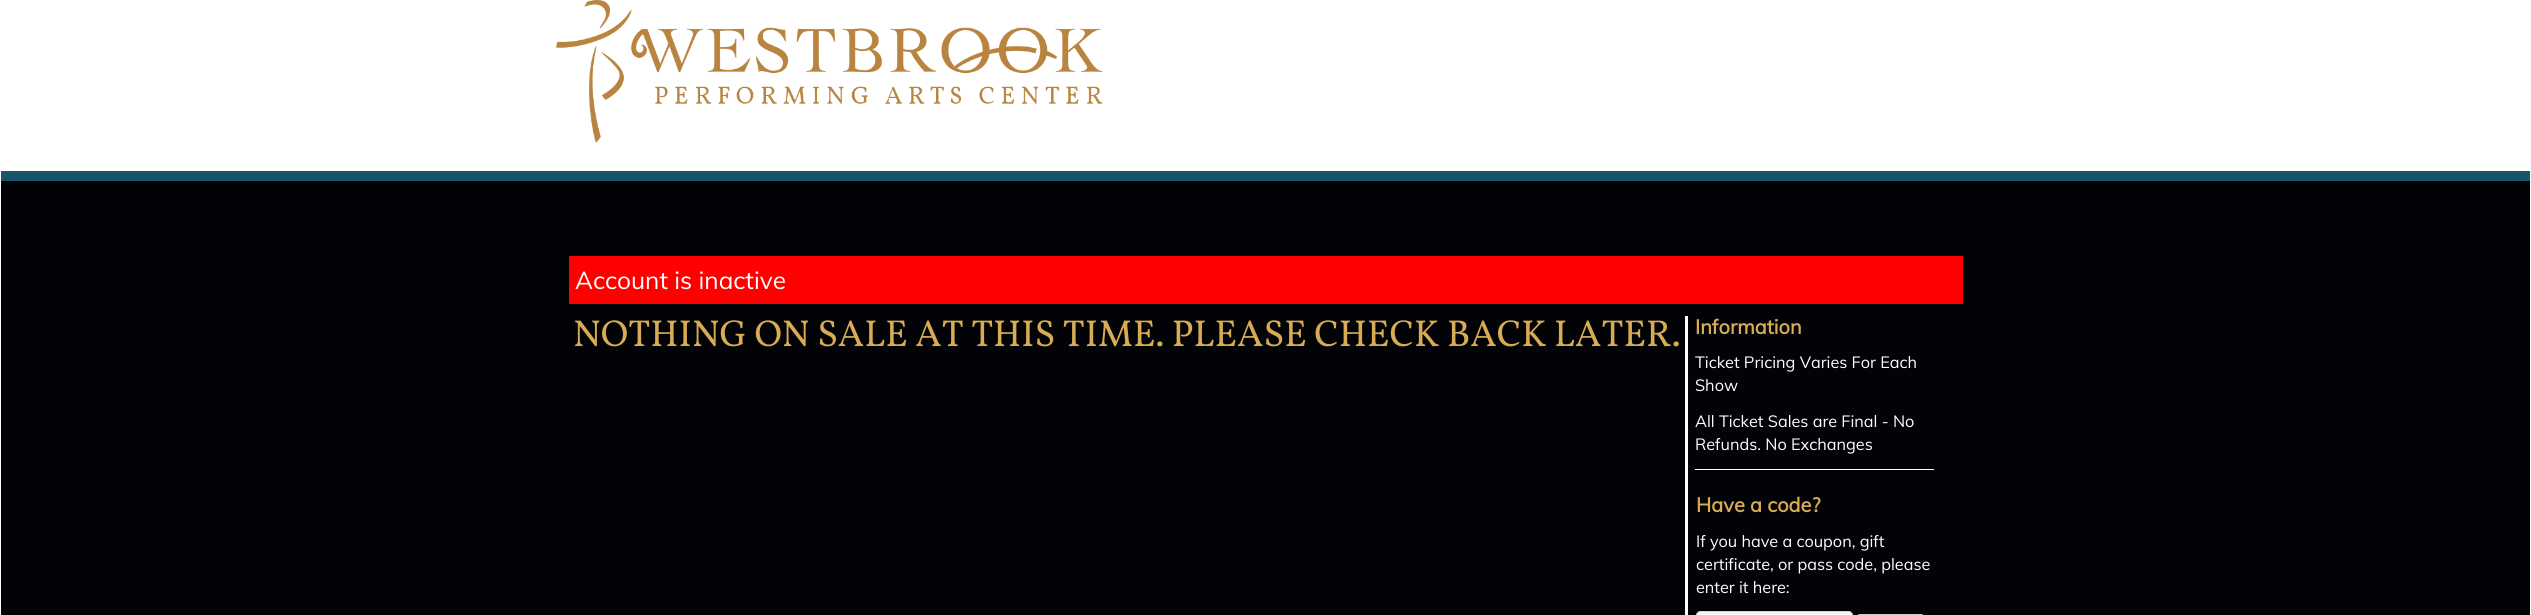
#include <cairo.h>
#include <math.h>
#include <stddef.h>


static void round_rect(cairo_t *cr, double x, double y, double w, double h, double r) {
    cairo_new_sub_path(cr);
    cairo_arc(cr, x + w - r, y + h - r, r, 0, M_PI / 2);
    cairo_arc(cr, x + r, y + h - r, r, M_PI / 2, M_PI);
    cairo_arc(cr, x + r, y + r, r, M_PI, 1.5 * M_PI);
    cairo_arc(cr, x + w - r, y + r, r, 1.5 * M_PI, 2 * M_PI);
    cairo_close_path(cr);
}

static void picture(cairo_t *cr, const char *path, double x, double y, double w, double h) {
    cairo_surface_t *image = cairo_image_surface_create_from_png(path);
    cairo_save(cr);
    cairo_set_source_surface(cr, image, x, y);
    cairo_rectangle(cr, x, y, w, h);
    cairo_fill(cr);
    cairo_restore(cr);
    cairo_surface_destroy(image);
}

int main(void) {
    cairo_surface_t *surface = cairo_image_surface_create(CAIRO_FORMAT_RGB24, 2531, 615);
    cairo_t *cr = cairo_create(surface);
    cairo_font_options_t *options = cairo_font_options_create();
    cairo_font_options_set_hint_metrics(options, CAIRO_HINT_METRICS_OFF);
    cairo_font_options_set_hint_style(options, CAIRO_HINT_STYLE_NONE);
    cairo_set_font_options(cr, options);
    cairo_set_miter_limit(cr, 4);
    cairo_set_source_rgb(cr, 1, 1, 1);
    cairo_paint(cr);
    cairo_set_source_rgb(cr, 0.102, 0.329, 0.42);
    cairo_rectangle(cr, 1, 171, 2529, 10);
    cairo_fill(cr);
    picture(cr, "img1.png", 556, 0, 547, 143);
    cairo_set_source_rgb(cr, 0.008, 0.012, 0.027);
    cairo_rectangle(cr, 1, 181, 2529, 434);
    cairo_fill(cr);
    cairo_set_source_rgb(cr, 1, 0, 0);
    cairo_rectangle(cr, 569, 256, 1394, 48);
    cairo_fill(cr);
    cairo_select_font_face(cr, "Muli", CAIRO_FONT_SLANT_NORMAL, CAIRO_FONT_WEIGHT_NORMAL);
    cairo_set_font_size(cr, 24.4);
    cairo_set_source_rgb(cr, 1, 1, 1);
    cairo_move_to(cr, 575, 289);
    cairo_show_text(cr, "Account is inactive");
    cairo_select_font_face(cr, "Vollkorn", CAIRO_FONT_SLANT_NORMAL, CAIRO_FONT_WEIGHT_NORMAL);
    cairo_set_font_size(cr, 37.5);
    cairo_set_source_rgb(cr, 0.851, 0.675, 0.325);
    cairo_move_to(cr, 573, 346);
    cairo_show_text(cr, "NOTHING ON SALE AT THIS TIME. PLEASE CHECK BACK LATER.");
    cairo_set_source_rgb(cr, 1, 1, 1);
    cairo_rectangle(cr, 1685, 316, 3, 299);
    cairo_fill(cr);
    cairo_select_font_face(cr, "Muli", CAIRO_FONT_SLANT_NORMAL, CAIRO_FONT_WEIGHT_BOLD);
    cairo_set_font_size(cr, 20);
    cairo_set_source_rgb(cr, 0.851, 0.675, 0.325);
    cairo_move_to(cr, 1695, 334);
    cairo_show_text(cr, "Information");
    cairo_select_font_face(cr, "Muli", CAIRO_FONT_SLANT_NORMAL, CAIRO_FONT_WEIGHT_NORMAL);
    cairo_set_font_size(cr, 16.25);
    cairo_set_source_rgb(cr, 1, 1, 1);
    cairo_move_to(cr, 1695, 368);
    cairo_show_text(cr, "Ticket Pricing Varies For Each");
    cairo_move_to(cr, 1695, 391);
    cairo_show_text(cr, "Show");
    cairo_move_to(cr, 1695, 427);
    cairo_show_text(cr, "All Ticket Sales are Final - No");
    cairo_move_to(cr, 1695, 450);
    cairo_show_text(cr, "Refunds. No Exchanges");
    cairo_rectangle(cr, 1695, 469, 239, 1);
    cairo_fill(cr);
    cairo_select_font_face(cr, "Muli", CAIRO_FONT_SLANT_NORMAL, CAIRO_FONT_WEIGHT_BOLD);
    cairo_set_font_size(cr, 20);
    cairo_set_source_rgb(cr, 0.851, 0.675, 0.325);
    cairo_move_to(cr, 1696, 512);
    cairo_show_text(cr, "Have a code?");
    cairo_select_font_face(cr, "Muli", CAIRO_FONT_SLANT_NORMAL, CAIRO_FONT_WEIGHT_NORMAL);
    cairo_set_font_size(cr, 16.25);
    cairo_set_source_rgb(cr, 1, 1, 1);
    cairo_move_to(cr, 1696, 547);
    cairo_show_text(cr, "If you have a coupon, gift");
    cairo_move_to(cr, 1696, 570);
    cairo_show_text(cr, "certificate, or pass code, please");
    cairo_move_to(cr, 1696, 593);
    cairo_show_text(cr, "enter it here:");
    round_rect(cr, 1696, 611, 157, 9, 5);
    cairo_fill(cr);
    cairo_set_source_rgb(cr, 0.925, 0.925, 0.925);
    cairo_new_path(cr);
    cairo_move_to(cr, 1701, 614);
    cairo_line_to(cr, 1848, 614);
    cairo_curve_to(cr, 1850, 614, 1851, 615, 1851, 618);
    cairo_curve_to(cr, 1851, 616, 1850, 614, 1848, 613);
    cairo_line_to(cr, 1702, 613);
    cairo_curve_to(cr, 1699, 613, 1698, 615, 1698, 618);
    cairo_curve_to(cr, 1698, 615, 1699, 614, 1701, 614);
    cairo_close_path(cr);
    cairo_fill(cr);
    round_rect(cr, 1696.5, 611.5, 156, 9, 4.5);
    cairo_set_source_rgb(cr, 0.8, 0.8, 0.8);
    cairo_set_line_width(cr, 1);
    cairo_stroke(cr);
    round_rect(cr, 1856.5, 614.5, 68, 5, 3.5);
    cairo_stroke(cr);
    cairo_surface_write_to_png(surface, "page.png");
    cairo_font_options_destroy(options);
    cairo_destroy(cr);
    cairo_surface_destroy(surface);
    return 0;
}
